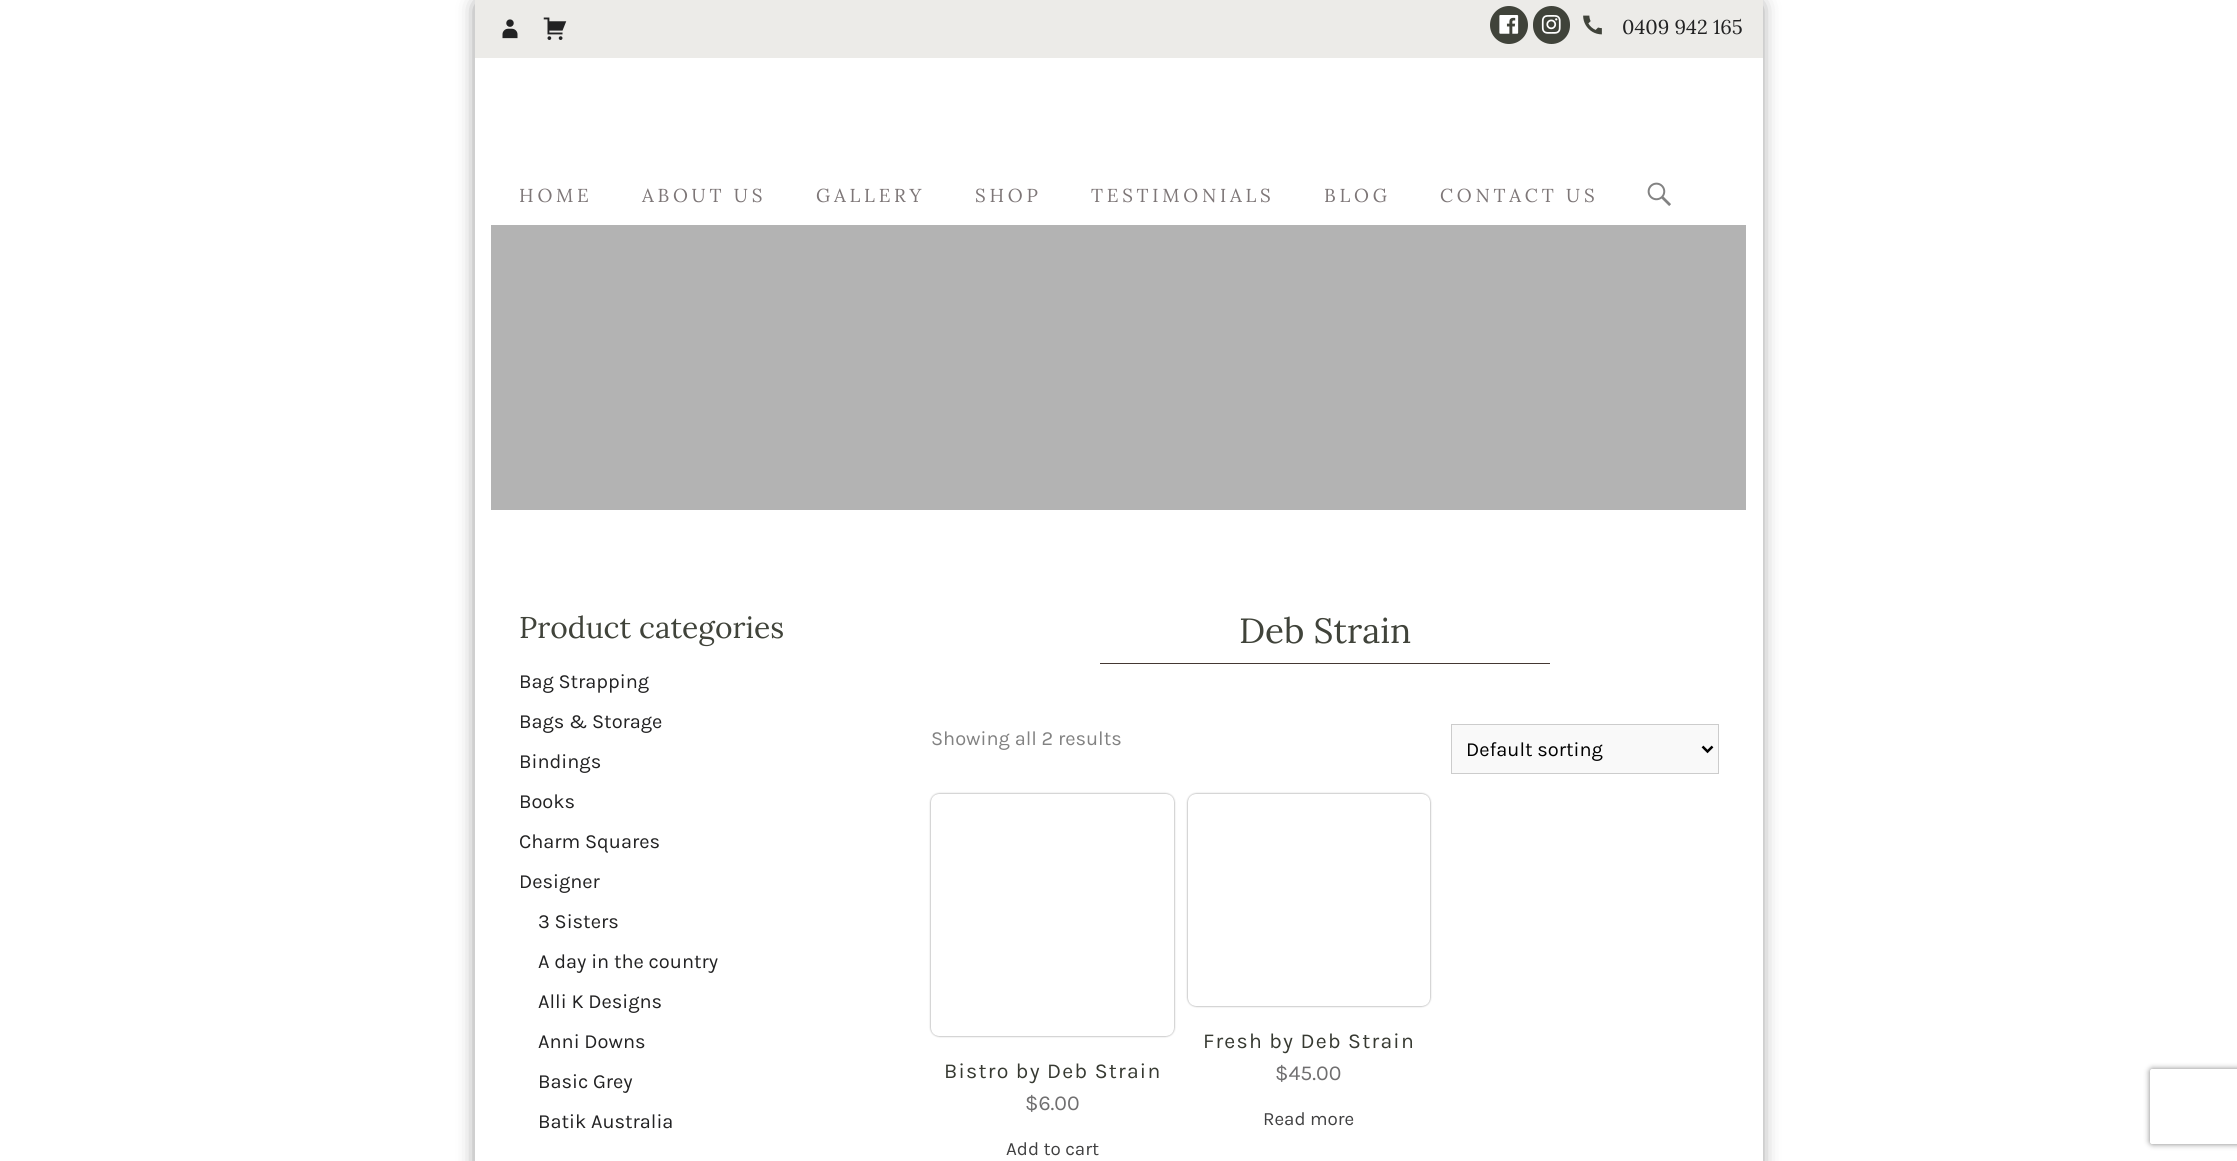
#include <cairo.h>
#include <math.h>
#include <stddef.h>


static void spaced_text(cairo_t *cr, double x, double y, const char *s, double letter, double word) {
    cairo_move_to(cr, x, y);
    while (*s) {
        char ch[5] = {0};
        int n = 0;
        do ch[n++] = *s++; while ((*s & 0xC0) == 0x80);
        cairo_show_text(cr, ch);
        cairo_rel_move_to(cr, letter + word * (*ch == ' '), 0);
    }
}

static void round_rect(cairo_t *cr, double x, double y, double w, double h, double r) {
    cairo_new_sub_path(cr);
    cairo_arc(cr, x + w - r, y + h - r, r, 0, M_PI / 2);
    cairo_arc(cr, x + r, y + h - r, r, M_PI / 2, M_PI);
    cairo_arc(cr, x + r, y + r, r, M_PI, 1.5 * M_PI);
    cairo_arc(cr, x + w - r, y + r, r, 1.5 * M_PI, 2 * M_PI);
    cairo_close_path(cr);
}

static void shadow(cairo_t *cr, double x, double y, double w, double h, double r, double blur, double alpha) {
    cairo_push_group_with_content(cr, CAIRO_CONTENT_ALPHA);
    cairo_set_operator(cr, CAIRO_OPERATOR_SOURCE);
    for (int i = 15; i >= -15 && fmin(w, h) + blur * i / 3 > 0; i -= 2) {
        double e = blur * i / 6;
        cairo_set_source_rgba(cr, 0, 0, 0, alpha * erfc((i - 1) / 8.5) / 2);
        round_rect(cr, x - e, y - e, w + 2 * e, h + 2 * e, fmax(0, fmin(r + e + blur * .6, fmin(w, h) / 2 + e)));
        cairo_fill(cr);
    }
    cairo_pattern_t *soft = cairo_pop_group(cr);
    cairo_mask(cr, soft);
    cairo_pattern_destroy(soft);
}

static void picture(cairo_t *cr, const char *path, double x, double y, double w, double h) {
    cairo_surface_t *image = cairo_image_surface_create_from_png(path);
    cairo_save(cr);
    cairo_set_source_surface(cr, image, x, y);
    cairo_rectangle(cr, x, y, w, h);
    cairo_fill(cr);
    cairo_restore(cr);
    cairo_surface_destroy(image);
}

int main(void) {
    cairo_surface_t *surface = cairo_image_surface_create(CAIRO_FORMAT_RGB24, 2237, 1161);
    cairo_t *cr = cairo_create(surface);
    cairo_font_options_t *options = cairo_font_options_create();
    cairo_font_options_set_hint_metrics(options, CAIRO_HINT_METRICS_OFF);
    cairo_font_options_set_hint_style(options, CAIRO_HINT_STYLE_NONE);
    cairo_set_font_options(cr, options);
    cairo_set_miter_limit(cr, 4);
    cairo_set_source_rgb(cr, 1, 1, 1);
    cairo_paint(cr);
    cairo_set_source_rgb(cr, 0, 0, 0);
    shadow(cr, 481, 6, 1275, 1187, 0, 10.5, 0.75);
    cairo_set_source_rgb(cr, 1, 1, 1);
    cairo_rectangle(cr, 475, 58, 1288, 1103);
    cairo_fill(cr);
    cairo_set_source_rgb(cr, 0.922, 0.918, 0.91);
    cairo_rectangle(cr, 475, 0, 1288, 58);
    cairo_fill(cr);
    picture(cr, "img1.png", 502, 19, 16, 20);
    picture(cr, "img2.png", 543, 17, 24, 23);
    cairo_set_source_rgb(cr, 0.251, 0.263, 0.227);
    cairo_arc(cr, 1509, 25, 19, 0, 2 * M_PI);
    cairo_fill(cr);
    picture(cr, "img3.png", 1499, 15, 20, 19);
    round_rect(cr, 1533, 6, 37, 38, 18.5);
    cairo_fill(cr);
    picture(cr, "img4.png", 1541, 15, 20, 19);
    picture(cr, "img5.png", 1583, 15, 19, 20);
    cairo_select_font_face(cr, "Lora", CAIRO_FONT_SLANT_NORMAL, CAIRO_FONT_WEIGHT_NORMAL);
    cairo_set_font_size(cr, 20);
    cairo_set_source_rgb(cr, 0.133, 0.133, 0.137);
    cairo_move_to(cr, 1622, 34);
    cairo_show_text(cr, "0409 942 165");
    cairo_set_font_size(cr, 18.75);
    cairo_set_source_rgb(cr, 0.49, 0.463, 0.467);
    spaced_text(cr, 519, 202, "HOME", 3.75, 0);
    spaced_text(cr, 642, 202, "ABOUT US", 3.75, 0);
    spaced_text(cr, 816, 202, "GALLERY", 3.75, 0);
    spaced_text(cr, 975, 202, "SHOP", 3.75, 0);
    spaced_text(cr, 1091, 202, "TESTIMONIALS", 3.75, 0);
    spaced_text(cr, 1324, 202, "BLOG", 3.75, 0);
    spaced_text(cr, 1440, 202, "CONTACT US", 3.75, 0);
    picture(cr, "img6.png", 1647, 182, 24, 24);
    cairo_set_source_rgb(cr, 0.702, 0.702, 0.702);
    cairo_rectangle(cr, 491, 225, 1255, 285);
    cairo_fill(cr);
    cairo_set_font_size(cr, 30);
    cairo_set_source_rgb(cr, 0.251, 0.263, 0.227);
    cairo_move_to(cr, 519, 638);
    cairo_show_text(cr, "Product categories");
    cairo_select_font_face(cr, "Karla", CAIRO_FONT_SLANT_NORMAL, CAIRO_FONT_WEIGHT_NORMAL);
    cairo_set_font_size(cr, 20);
    cairo_set_source_rgb(cr, 0.133, 0.133, 0.137);
    cairo_move_to(cr, 519, 688);
    cairo_show_text(cr, "Bag Strapping");
    cairo_move_to(cr, 519, 728);
    cairo_show_text(cr, "Bags & Storage");
    cairo_move_to(cr, 519, 768);
    cairo_show_text(cr, "Bindings");
    cairo_move_to(cr, 519, 808);
    cairo_show_text(cr, "Books");
    cairo_move_to(cr, 519, 848);
    cairo_show_text(cr, "Charm Squares");
    cairo_move_to(cr, 519, 888);
    cairo_show_text(cr, "Designer");
    cairo_move_to(cr, 538, 928);
    cairo_show_text(cr, "3 Sisters");
    cairo_move_to(cr, 538, 968);
    cairo_show_text(cr, "A day in the country");
    cairo_move_to(cr, 538, 1008);
    cairo_show_text(cr, "Alli K Designs");
    cairo_move_to(cr, 538, 1048);
    cairo_show_text(cr, "Anni Downs");
    cairo_move_to(cr, 538, 1088);
    cairo_show_text(cr, "Basic Grey");
    cairo_move_to(cr, 538, 1128);
    cairo_show_text(cr, "Batik Australia");
    cairo_set_source_rgb(cr, 0.267, 0.22, 0.2);
    cairo_rectangle(cr, 1100, 663, 450, 1);
    cairo_fill(cr);
    cairo_select_font_face(cr, "Lora", CAIRO_FONT_SLANT_NORMAL, CAIRO_FONT_WEIGHT_NORMAL);
    cairo_set_font_size(cr, 35);
    cairo_set_source_rgb(cr, 0.251, 0.263, 0.227);
    cairo_move_to(cr, 1239, 643);
    cairo_show_text(cr, "Deb Strain");
    cairo_select_font_face(cr, "Karla", CAIRO_FONT_SLANT_NORMAL, CAIRO_FONT_WEIGHT_NORMAL);
    cairo_set_font_size(cr, 20);
    cairo_set_source_rgb(cr, 0.51, 0.51, 0.51);
    cairo_move_to(cr, 931, 745);
    cairo_show_text(cr, "Showing all 2 results");
    cairo_set_source_rgb(cr, 0.973, 0.973, 0.973);
    cairo_rectangle(cr, 1451.5, 724.5, 267, 49);
    cairo_fill_preserve(cr);
    cairo_set_source_rgb(cr, 0.8, 0.8, 0.8);
    cairo_set_line_width(cr, 1);
    cairo_stroke(cr);
    cairo_new_path(cr);
    cairo_move_to(cr, 1702.5, 746.5);
    cairo_line_to(cr, 1707.5, 751.5);
    cairo_line_to(cr, 1712.5, 746.5);
    cairo_set_source_rgb(cr, 0, 0, 0);
    cairo_set_line_width(cr, 2.5);
    cairo_stroke(cr);
    cairo_move_to(cr, 1466, 756);
    cairo_show_text(cr, "Default sorting");
    cairo_set_source_rgb(cr, 0.522, 0.522, 0.522);
    shadow(cr, 931, 794, 243, 242, 8, 1, 1);
    cairo_set_source_rgb(cr, 1, 1, 1);
    round_rect(cr, 931, 794, 243, 242, 8);
    cairo_fill(cr);
    cairo_set_font_size(cr, 21.25);
    cairo_set_source_rgb(cr, 0.216, 0.227, 0.196);
    spaced_text(cr, 944, 1078, "Bistro by Deb Strain", 1.25, 0);
    cairo_set_source_rgb(cr, 0.439, 0.435, 0.439);
    cairo_move_to(cr, 1025, 1110);
    cairo_show_text(cr, "$6.00");
    cairo_set_font_size(cr, 18.75);
    cairo_set_source_rgb(cr, 0.251, 0.251, 0.255);
    cairo_move_to(cr, 1006, 1155);
    cairo_show_text(cr, "Add to cart");
    cairo_set_source_rgb(cr, 0.522, 0.522, 0.522);
    shadow(cr, 1188, 794, 242, 212, 8, 1, 1);
    cairo_set_source_rgb(cr, 1, 1, 1);
    round_rect(cr, 1188, 794, 242, 212, 8);
    cairo_fill(cr);
    cairo_set_font_size(cr, 21.25);
    cairo_set_source_rgb(cr, 0.216, 0.227, 0.196);
    spaced_text(cr, 1203, 1048, "Fresh by Deb Strain", 1.25, 0);
    cairo_set_source_rgb(cr, 0.439, 0.435, 0.439);
    cairo_move_to(cr, 1275, 1080);
    cairo_show_text(cr, "$45.00");
    cairo_set_font_size(cr, 18.75);
    cairo_set_source_rgb(cr, 0.251, 0.251, 0.255);
    cairo_move_to(cr, 1263, 1125);
    cairo_show_text(cr, "Read more");
    cairo_save(cr);
    cairo_set_fill_rule(cr, CAIRO_FILL_RULE_EVEN_ODD);
    cairo_new_path(cr);
    cairo_move_to(cr, 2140, 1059);
    cairo_line_to(cr, 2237, 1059);
    cairo_line_to(cr, 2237, 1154);
    cairo_line_to(cr, 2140, 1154);
    cairo_close_path(cr);
    cairo_move_to(cr, 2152.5, 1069);
    cairo_line_to(cr, 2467.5, 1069);
    cairo_curve_to(cr, 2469, 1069, 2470, 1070, 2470, 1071.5);
    cairo_line_to(cr, 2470, 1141.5);
    cairo_curve_to(cr, 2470, 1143, 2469, 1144, 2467.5, 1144);
    cairo_line_to(cr, 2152.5, 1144);
    cairo_curve_to(cr, 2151, 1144, 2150, 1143, 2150, 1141.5);
    cairo_line_to(cr, 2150, 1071.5);
    cairo_curve_to(cr, 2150, 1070, 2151, 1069, 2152.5, 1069);
    cairo_close_path(cr);
    cairo_clip(cr);
    cairo_set_source_rgb(cr, 0.502, 0.502, 0.502);
    shadow(cr, 2150, 1069, 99, 75, 2.5, 3, 1);
    cairo_restore(cr);
    cairo_surface_write_to_png(surface, "page.png");
    cairo_font_options_destroy(options);
    cairo_destroy(cr);
    cairo_surface_destroy(surface);
    return 0;
}
